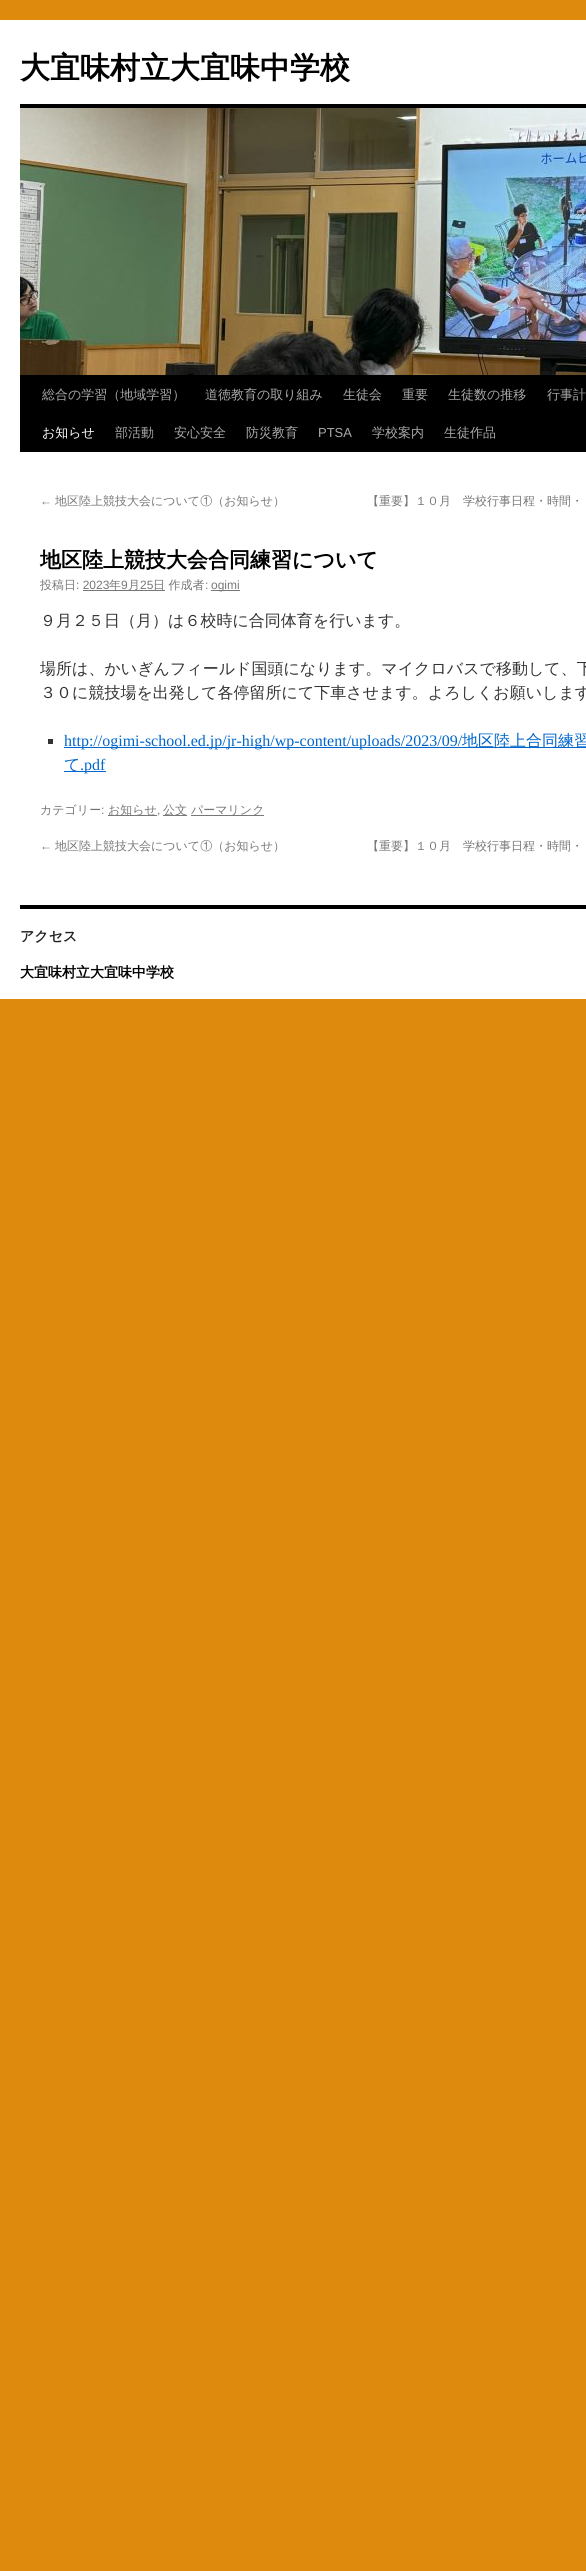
#include <cairo.h>
#include <math.h>
#include <stddef.h>


static void picture(cairo_t *cr, const char *path, double x, double y, double w, double h) {
    cairo_surface_t *image = cairo_image_surface_create_from_png(path);
    cairo_save(cr);
    cairo_set_source_surface(cr, image, x, y);
    cairo_rectangle(cr, x, y, w, h);
    cairo_fill(cr);
    cairo_restore(cr);
    cairo_surface_destroy(image);
}

int main(void) {
    cairo_surface_t *surface = cairo_image_surface_create(CAIRO_FORMAT_RGB24, 586, 2571);
    cairo_t *cr = cairo_create(surface);
    cairo_font_options_t *options = cairo_font_options_create();
    cairo_font_options_set_hint_metrics(options, CAIRO_HINT_METRICS_OFF);
    cairo_font_options_set_hint_style(options, CAIRO_HINT_STYLE_NONE);
    cairo_set_font_options(cr, options);
    cairo_set_miter_limit(cr, 4);
    cairo_set_source_rgb(cr, 0.867, 0.541, 0.051);
    cairo_paint(cr);
    cairo_set_source_rgb(cr, 1, 1, 1);
    cairo_rectangle(cr, 0, 20, 586, 979);
    cairo_fill(cr);
    cairo_select_font_face(cr, "WenQuanYi Zen Hei", CAIRO_FONT_SLANT_NORMAL, CAIRO_FONT_WEIGHT_BOLD);
    cairo_set_font_size(cr, 30);
    cairo_set_source_rgb(cr, 0, 0, 0);
    cairo_move_to(cr, 20, 78);
    cairo_show_text(cr, "大宜味村立大宜味中学校");
    cairo_rectangle(cr, 20, 104, 566, 4);
    cairo_fill(cr);
    cairo_rectangle(cr, 20, 375, 566, 77);
    cairo_fill(cr);
    picture(cr, "img1.png", 20, 108, 566, 267);
    cairo_select_font_face(cr, "WenQuanYi Zen Hei Medium", CAIRO_FONT_SLANT_NORMAL, CAIRO_FONT_WEIGHT_NORMAL);
    cairo_set_font_size(cr, 13);
    cairo_set_source_rgb(cr, 0.667, 0.667, 0.667);
    cairo_move_to(cr, 42, 399);
    cairo_show_text(cr, "総合の学習（地域学習）");
    cairo_move_to(cr, 205, 399);
    cairo_show_text(cr, "道徳教育の取り組み");
    cairo_move_to(cr, 343, 399);
    cairo_show_text(cr, "生徒会");
    cairo_move_to(cr, 402, 399);
    cairo_show_text(cr, "重要");
    cairo_move_to(cr, 448, 399);
    cairo_show_text(cr, "生徒数の推移");
    cairo_move_to(cr, 547, 399);
    cairo_show_text(cr, "行事計");
    cairo_set_source_rgb(cr, 1, 1, 1);
    cairo_move_to(cr, 42, 437);
    cairo_show_text(cr, "お知らせ");
    cairo_set_source_rgb(cr, 0.667, 0.667, 0.667);
    cairo_move_to(cr, 115, 437);
    cairo_show_text(cr, "部活動");
    cairo_move_to(cr, 174, 437);
    cairo_show_text(cr, "安心安全");
    cairo_move_to(cr, 246, 437);
    cairo_show_text(cr, "防災教育");
    cairo_select_font_face(cr, "Liberation Sans", CAIRO_FONT_SLANT_NORMAL, CAIRO_FONT_WEIGHT_NORMAL);
    cairo_move_to(cr, 318, 437);
    cairo_show_text(cr, "PTSA");
    cairo_select_font_face(cr, "WenQuanYi Zen Hei Medium", CAIRO_FONT_SLANT_NORMAL, CAIRO_FONT_WEIGHT_NORMAL);
    cairo_move_to(cr, 372, 437);
    cairo_show_text(cr, "学校案内");
    cairo_move_to(cr, 444, 437);
    cairo_show_text(cr, "生徒作品");
    cairo_select_font_face(cr, "Liberation Sans", CAIRO_FONT_SLANT_NORMAL, CAIRO_FONT_WEIGHT_NORMAL);
    cairo_set_font_size(cr, 12);
    cairo_set_source_rgb(cr, 0.467, 0.467, 0.467);
    cairo_move_to(cr, 40, 505);
    cairo_show_text(cr, "←");
    cairo_select_font_face(cr, "WenQuanYi Zen Hei Medium", CAIRO_FONT_SLANT_NORMAL, CAIRO_FONT_WEIGHT_NORMAL);
    cairo_move_to(cr, 55, 505);
    cairo_show_text(cr, "地区陸上競技大会について①（お知らせ）");
    cairo_move_to(cr, 367, 505);
    cairo_show_text(cr, "【重要】１０月　学校行事日程・時間・");
    cairo_select_font_face(cr, "WenQuanYi Zen Hei", CAIRO_FONT_SLANT_NORMAL, CAIRO_FONT_WEIGHT_BOLD);
    cairo_set_font_size(cr, 21);
    cairo_set_source_rgb(cr, 0, 0, 0);
    cairo_move_to(cr, 40, 567);
    cairo_show_text(cr, "地区陸上競技大会合同練習について");
    cairo_select_font_face(cr, "WenQuanYi Zen Hei Medium", CAIRO_FONT_SLANT_NORMAL, CAIRO_FONT_WEIGHT_NORMAL);
    cairo_set_font_size(cr, 12);
    cairo_set_source_rgb(cr, 0.467, 0.467, 0.467);
    cairo_move_to(cr, 40, 589);
    cairo_show_text(cr, "投稿日");
    cairo_select_font_face(cr, "Liberation Sans", CAIRO_FONT_SLANT_NORMAL, CAIRO_FONT_WEIGHT_NORMAL);
    cairo_move_to(cr, 76, 589);
    cairo_show_text(cr, ": 2023");
    cairo_rectangle(cr, 83, 590, 82, 1);
    cairo_fill(cr);
    cairo_select_font_face(cr, "WenQuanYi Zen Hei Medium", CAIRO_FONT_SLANT_NORMAL, CAIRO_FONT_WEIGHT_NORMAL);
    cairo_move_to(cr, 109, 589);
    cairo_show_text(cr, "年");
    cairo_select_font_face(cr, "Liberation Sans", CAIRO_FONT_SLANT_NORMAL, CAIRO_FONT_WEIGHT_NORMAL);
    cairo_move_to(cr, 121, 589);
    cairo_show_text(cr, "9");
    cairo_select_font_face(cr, "WenQuanYi Zen Hei Medium", CAIRO_FONT_SLANT_NORMAL, CAIRO_FONT_WEIGHT_NORMAL);
    cairo_move_to(cr, 128, 589);
    cairo_show_text(cr, "月");
    cairo_select_font_face(cr, "Liberation Sans", CAIRO_FONT_SLANT_NORMAL, CAIRO_FONT_WEIGHT_NORMAL);
    cairo_move_to(cr, 140, 589);
    cairo_show_text(cr, "25");
    cairo_select_font_face(cr, "WenQuanYi Zen Hei Medium", CAIRO_FONT_SLANT_NORMAL, CAIRO_FONT_WEIGHT_NORMAL);
    cairo_move_to(cr, 153, 589);
    cairo_show_text(cr, "日 作成者");
    cairo_select_font_face(cr, "Liberation Sans", CAIRO_FONT_SLANT_NORMAL, CAIRO_FONT_WEIGHT_NORMAL);
    cairo_move_to(cr, 205, 589);
    cairo_show_text(cr, ":");
    cairo_rectangle(cr, 211, 590, 29, 1);
    cairo_fill(cr);
    cairo_move_to(cr, 211, 589);
    cairo_show_text(cr, "ogimi");
    cairo_select_font_face(cr, "WenQuanYi Zen Hei Medium", CAIRO_FONT_SLANT_NORMAL, CAIRO_FONT_WEIGHT_NORMAL);
    cairo_set_font_size(cr, 16);
    cairo_set_source_rgb(cr, 0.2, 0.2, 0.2);
    cairo_move_to(cr, 40, 626);
    cairo_show_text(cr, "９月２５日（月）は６校時に合同体育を行います。");
    cairo_move_to(cr, 40, 674);
    cairo_show_text(cr, "場所は、かいぎんフィールド国頭になります。マイクロバスで移動して、下");
    cairo_move_to(cr, 40, 698);
    cairo_show_text(cr, "３０に競技場を出発して各停留所にて下車させます。よろしくお願いします");
    cairo_rectangle(cr, 48, 739, 5, 5);
    cairo_fill(cr);
    cairo_set_source_rgb(cr, 0, 0.4, 0.8);
    cairo_rectangle(cr, 64, 747, 522, 1);
    cairo_fill(cr);
    cairo_select_font_face(cr, "Liberation Serif", CAIRO_FONT_SLANT_NORMAL, CAIRO_FONT_WEIGHT_NORMAL);
    cairo_move_to(cr, 64, 746);
    cairo_show_text(cr, "http://ogimi-school.ed.jp/jr-high/wp-content/uploads/2023/09/");
    cairo_select_font_face(cr, "WenQuanYi Zen Hei Medium", CAIRO_FONT_SLANT_NORMAL, CAIRO_FONT_WEIGHT_NORMAL);
    cairo_move_to(cr, 462, 746);
    cairo_show_text(cr, "地区陸上合同練習");
    cairo_rectangle(cr, 64, 771, 42, 1);
    cairo_fill(cr);
    cairo_move_to(cr, 64, 770);
    cairo_show_text(cr, "て");
    cairo_select_font_face(cr, "Liberation Serif", CAIRO_FONT_SLANT_NORMAL, CAIRO_FONT_WEIGHT_NORMAL);
    cairo_move_to(cr, 80, 770);
    cairo_show_text(cr, ".pdf");
    cairo_select_font_face(cr, "WenQuanYi Zen Hei Medium", CAIRO_FONT_SLANT_NORMAL, CAIRO_FONT_WEIGHT_NORMAL);
    cairo_set_font_size(cr, 12);
    cairo_set_source_rgb(cr, 0.467, 0.467, 0.467);
    cairo_move_to(cr, 40, 814);
    cairo_show_text(cr, "カテゴリー");
    cairo_select_font_face(cr, "Liberation Sans", CAIRO_FONT_SLANT_NORMAL, CAIRO_FONT_WEIGHT_NORMAL);
    cairo_move_to(cr, 101, 814);
    cairo_show_text(cr, ":");
    cairo_rectangle(cr, 108, 815, 49, 1);
    cairo_fill(cr);
    cairo_select_font_face(cr, "WenQuanYi Zen Hei Medium", CAIRO_FONT_SLANT_NORMAL, CAIRO_FONT_WEIGHT_NORMAL);
    cairo_move_to(cr, 108, 814);
    cairo_show_text(cr, "お知らせ");
    cairo_select_font_face(cr, "Liberation Sans", CAIRO_FONT_SLANT_NORMAL, CAIRO_FONT_WEIGHT_NORMAL);
    cairo_move_to(cr, 157, 814);
    cairo_show_text(cr, ",");
    cairo_rectangle(cr, 163, 815, 24, 1);
    cairo_fill(cr);
    cairo_select_font_face(cr, "WenQuanYi Zen Hei Medium", CAIRO_FONT_SLANT_NORMAL, CAIRO_FONT_WEIGHT_NORMAL);
    cairo_move_to(cr, 163, 814);
    cairo_show_text(cr, "公文");
    cairo_rectangle(cr, 191, 815, 73, 1);
    cairo_fill(cr);
    cairo_move_to(cr, 191, 814);
    cairo_show_text(cr, "パーマリンク");
    cairo_select_font_face(cr, "Liberation Sans", CAIRO_FONT_SLANT_NORMAL, CAIRO_FONT_WEIGHT_NORMAL);
    cairo_move_to(cr, 40, 850);
    cairo_show_text(cr, "←");
    cairo_select_font_face(cr, "WenQuanYi Zen Hei Medium", CAIRO_FONT_SLANT_NORMAL, CAIRO_FONT_WEIGHT_NORMAL);
    cairo_move_to(cr, 55, 850);
    cairo_show_text(cr, "地区陸上競技大会について①（お知らせ）");
    cairo_move_to(cr, 367, 850);
    cairo_show_text(cr, "【重要】１０月　学校行事日程・時間・");
    cairo_set_source_rgb(cr, 0, 0, 0);
    cairo_rectangle(cr, 20, 905, 566, 4);
    cairo_fill(cr);
    cairo_select_font_face(cr, "WenQuanYi Zen Hei", CAIRO_FONT_SLANT_NORMAL, CAIRO_FONT_WEIGHT_BOLD);
    cairo_set_font_size(cr, 14);
    cairo_set_source_rgb(cr, 0.133, 0.133, 0.133);
    cairo_move_to(cr, 20, 941);
    cairo_show_text(cr, "アクセス");
    cairo_set_source_rgb(cr, 0, 0, 0);
    cairo_move_to(cr, 20, 977);
    cairo_show_text(cr, "大宜味村立大宜味中学校");
    cairo_surface_write_to_png(surface, "page.png");
    cairo_font_options_destroy(options);
    cairo_destroy(cr);
    cairo_surface_destroy(surface);
    return 0;
}
